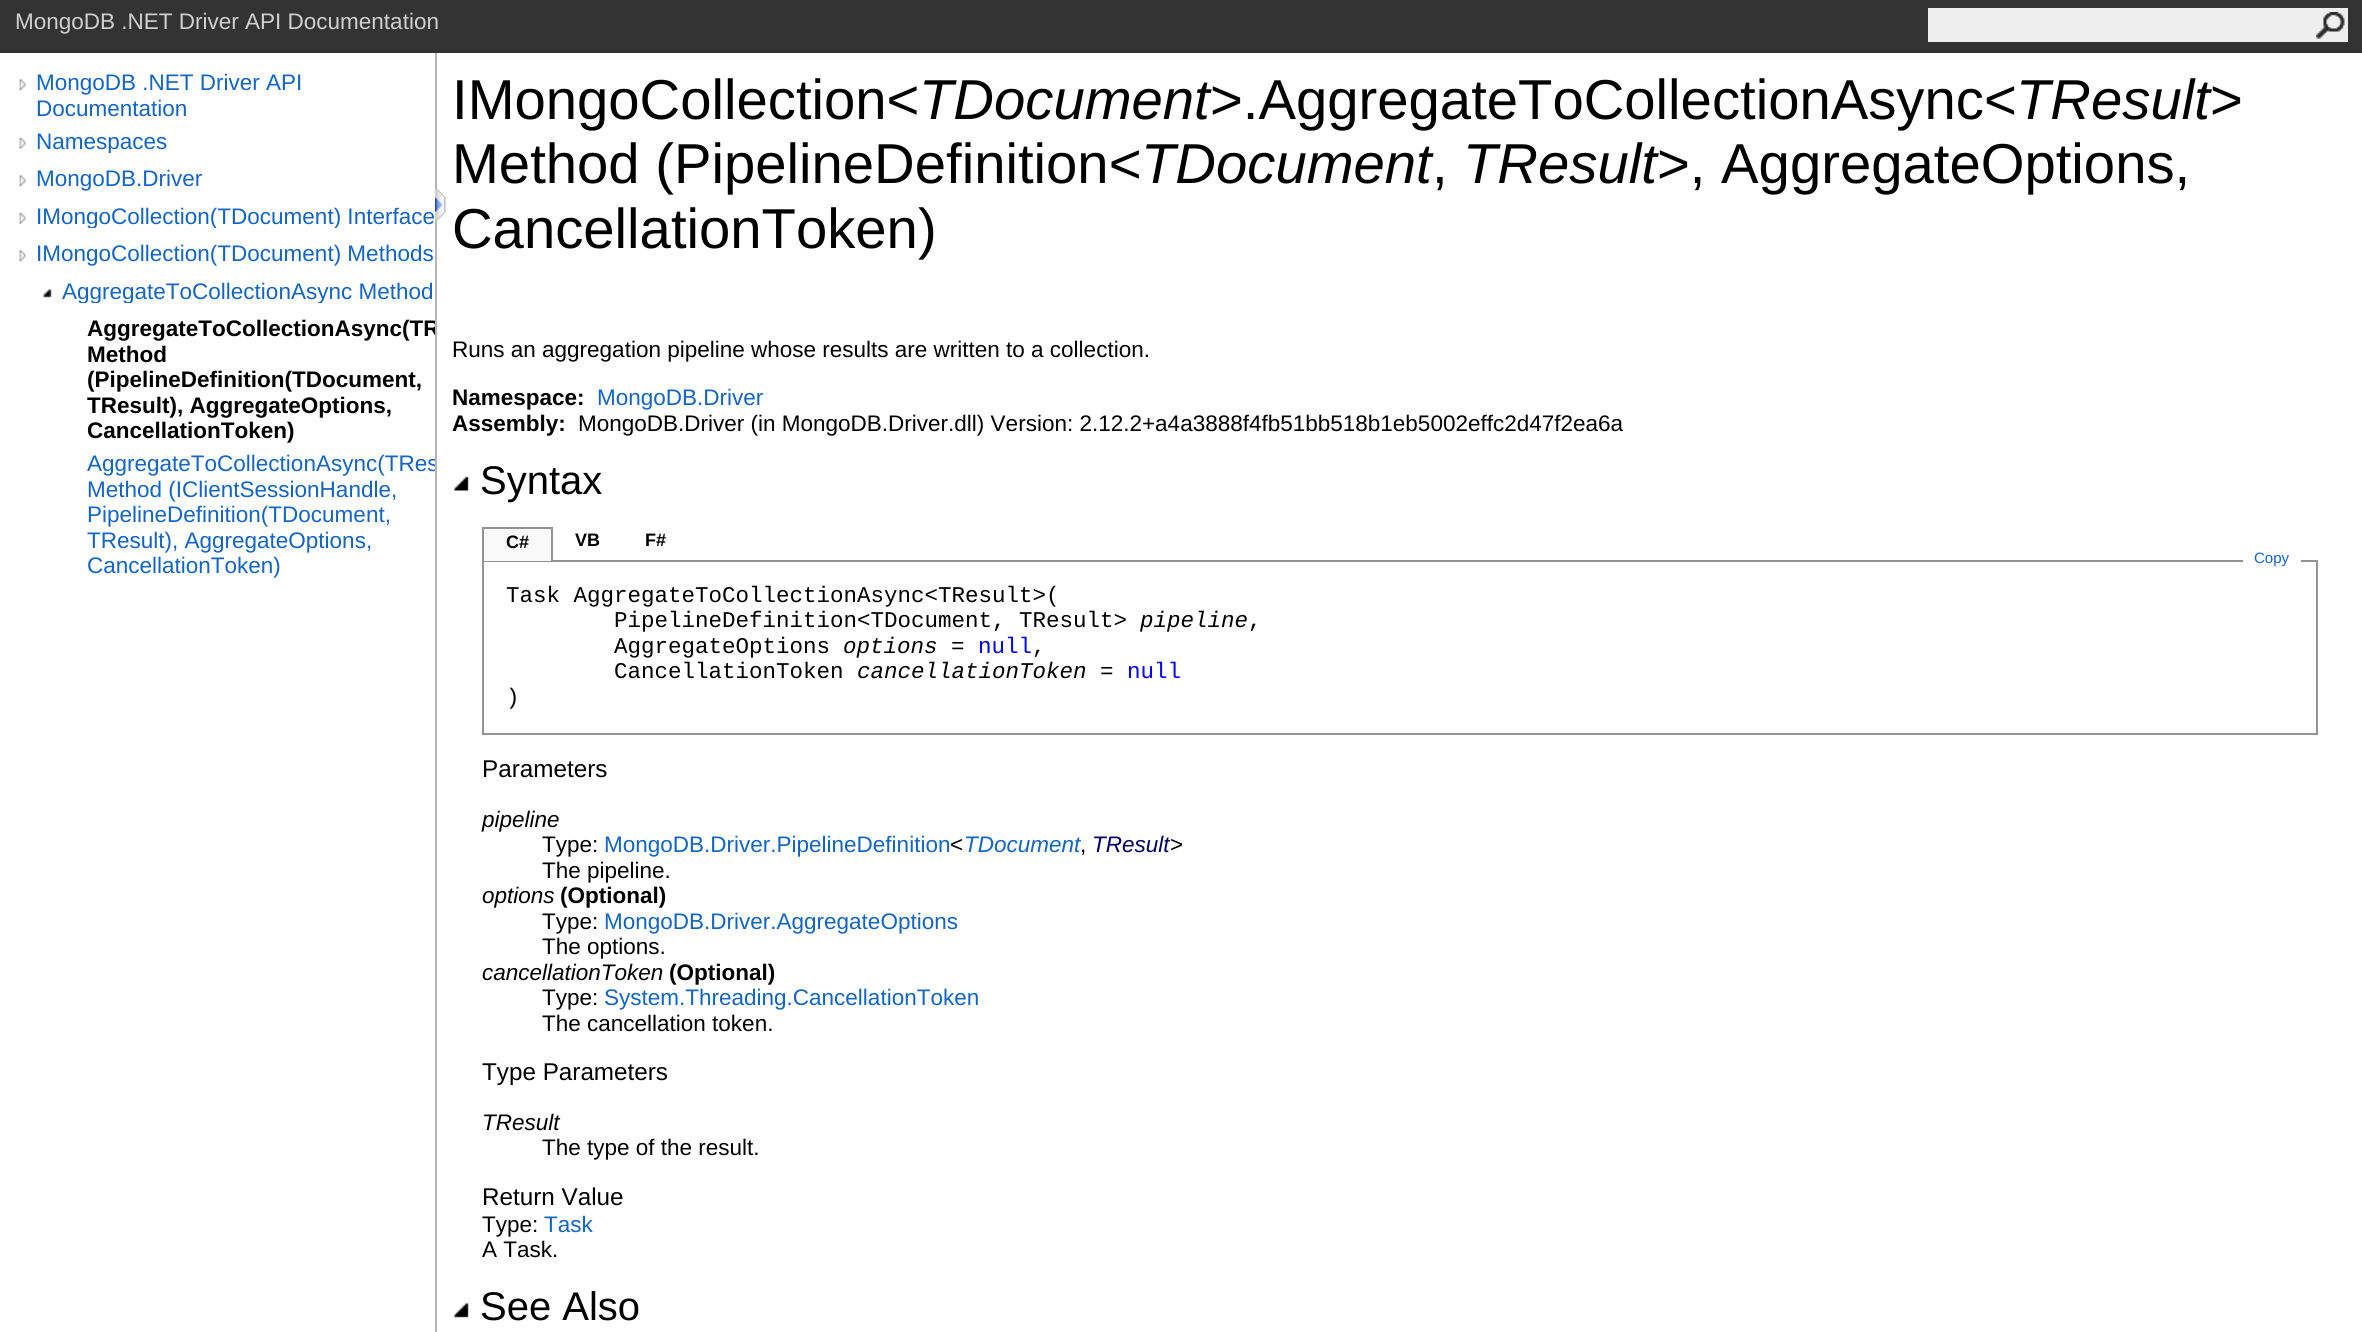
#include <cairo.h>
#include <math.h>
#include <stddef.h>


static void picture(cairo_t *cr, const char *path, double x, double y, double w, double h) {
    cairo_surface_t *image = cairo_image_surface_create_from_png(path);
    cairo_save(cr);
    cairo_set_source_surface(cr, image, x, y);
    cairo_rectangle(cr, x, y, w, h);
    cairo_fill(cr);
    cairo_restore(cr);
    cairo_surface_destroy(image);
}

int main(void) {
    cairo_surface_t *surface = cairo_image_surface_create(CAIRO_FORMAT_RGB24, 2362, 1332);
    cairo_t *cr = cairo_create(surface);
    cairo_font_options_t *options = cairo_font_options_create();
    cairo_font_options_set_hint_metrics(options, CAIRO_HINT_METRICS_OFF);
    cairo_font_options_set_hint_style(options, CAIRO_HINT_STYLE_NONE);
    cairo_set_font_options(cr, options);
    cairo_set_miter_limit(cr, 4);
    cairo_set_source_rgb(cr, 1, 1, 1);
    cairo_paint(cr);
    cairo_set_source_rgb(cr, 0.2, 0.2, 0.2);
    cairo_rectangle(cr, 0, 0, 2362, 53);
    cairo_fill(cr);
    cairo_select_font_face(cr, "Liberation Sans", CAIRO_FONT_SLANT_NORMAL, CAIRO_FONT_WEIGHT_NORMAL);
    cairo_set_font_size(cr, 22.5);
    cairo_set_source_rgb(cr, 0.816, 0.816, 0.816);
    cairo_move_to(cr, 15, 29);
    cairo_show_text(cr, "MongoDB .NET Driver API Documentation");
    cairo_set_source_rgb(cr, 0.933, 0.933, 0.933);
    cairo_rectangle(cr, 1928, 8, 420, 34);
    cairo_fill(cr);
    picture(cr, "img1.png", 2316, 12, 29, 27);
    cairo_set_source_rgb(cr, 0.714, 0.714, 0.714);
    cairo_rectangle(cr, 435, 53, 2, 1279);
    cairo_fill(cr);
    picture(cr, "img2.png", 19, 79, 7, 12);
    cairo_set_source_rgb(cr, 0.075, 0.392, 0.769);
    cairo_move_to(cr, 36, 90);
    cairo_show_text(cr, "MongoDB .NET Driver API");
    cairo_move_to(cr, 36, 116);
    cairo_show_text(cr, "Documentation");
    picture(cr, "img3.png", 19, 137, 7, 12);
    cairo_save(cr);
    cairo_rectangle(cr, 36, 128, 399, 25);
    cairo_clip(cr);
    cairo_move_to(cr, 36, 149);
    cairo_show_text(cr, "Namespaces");
    cairo_restore(cr);
    picture(cr, "img2.png", 19, 175, 7, 12);
    cairo_move_to(cr, 36, 186);
    cairo_show_text(cr, "MongoDB.Driver");
    picture(cr, "img3.png", 19, 212, 7, 12);
    cairo_save(cr);
    cairo_rectangle(cr, 36, 203, 399, 25);
    cairo_clip(cr);
    cairo_move_to(cr, 36, 224);
    cairo_show_text(cr, "IMongoCollection(TDocument) Interface");
    cairo_restore(cr);
    picture(cr, "img2.png", 19, 250, 7, 12);
    cairo_move_to(cr, 36, 261);
    cairo_show_text(cr, "IMongoCollection(TDocument) Methods");
    picture(cr, "img4.png", 43, 289, 9, 9);
    cairo_save(cr);
    cairo_rectangle(cr, 62, 278, 373, 25);
    cairo_clip(cr);
    cairo_move_to(cr, 62, 299);
    cairo_show_text(cr, "AggregateToCollectionAsync Method");
    cairo_restore(cr);
    cairo_save(cr);
    cairo_rectangle(cr, 87, 315, 348, 128);
    cairo_clip(cr);
    cairo_select_font_face(cr, "Liberation Sans", CAIRO_FONT_SLANT_NORMAL, CAIRO_FONT_WEIGHT_BOLD);
    cairo_set_source_rgb(cr, 0, 0, 0);
    cairo_move_to(cr, 87, 336);
    cairo_show_text(cr, "AggregateToCollectionAsync(TR");
    cairo_restore(cr);
    cairo_select_font_face(cr, "Liberation Sans", CAIRO_FONT_SLANT_NORMAL, CAIRO_FONT_WEIGHT_BOLD);
    cairo_set_source_rgb(cr, 0, 0, 0);
    cairo_move_to(cr, 87, 362);
    cairo_show_text(cr, "Method");
    cairo_move_to(cr, 87, 387);
    cairo_show_text(cr, "(PipelineDefinition(TDocument,");
    cairo_move_to(cr, 87, 413);
    cairo_show_text(cr, "TResult), AggregateOptions,");
    cairo_move_to(cr, 87, 438);
    cairo_show_text(cr, "CancellationToken)");
    cairo_save(cr);
    cairo_rectangle(cr, 87, 450, 348, 128);
    cairo_clip(cr);
    cairo_select_font_face(cr, "Liberation Sans", CAIRO_FONT_SLANT_NORMAL, CAIRO_FONT_WEIGHT_NORMAL);
    cairo_set_source_rgb(cr, 0.075, 0.392, 0.769);
    cairo_move_to(cr, 87, 471);
    cairo_show_text(cr, "AggregateToCollectionAsync(TRes");
    cairo_restore(cr);
    cairo_select_font_face(cr, "Liberation Sans", CAIRO_FONT_SLANT_NORMAL, CAIRO_FONT_WEIGHT_NORMAL);
    cairo_set_source_rgb(cr, 0.075, 0.392, 0.769);
    cairo_move_to(cr, 87, 497);
    cairo_show_text(cr, "Method (IClientSessionHandle,");
    cairo_move_to(cr, 87, 522);
    cairo_show_text(cr, "PipelineDefinition(TDocument,");
    cairo_move_to(cr, 87, 548);
    cairo_show_text(cr, "TResult), AggregateOptions,");
    cairo_move_to(cr, 87, 573);
    cairo_show_text(cr, "CancellationToken)");
    picture(cr, "img5.png", 435, 188, 11, 34);
    cairo_set_font_size(cr, 56.25);
    cairo_set_source_rgb(cr, 0, 0, 0);
    cairo_move_to(cr, 452, 119);
    cairo_show_text(cr, "IMongoCollection<");
    cairo_select_font_face(cr, "Liberation Sans", CAIRO_FONT_SLANT_ITALIC, CAIRO_FONT_WEIGHT_NORMAL);
    cairo_move_to(cr, 919, 119);
    cairo_show_text(cr, "TDocument");
    cairo_select_font_face(cr, "Liberation Sans", CAIRO_FONT_SLANT_NORMAL, CAIRO_FONT_WEIGHT_NORMAL);
    cairo_move_to(cr, 1210, 119);
    cairo_show_text(cr, ">.AggregateToCollectionAsync<");
    cairo_select_font_face(cr, "Liberation Sans", CAIRO_FONT_SLANT_ITALIC, CAIRO_FONT_WEIGHT_NORMAL);
    cairo_move_to(cr, 2016, 119);
    cairo_show_text(cr, "TResult");
    cairo_select_font_face(cr, "Liberation Sans", CAIRO_FONT_SLANT_NORMAL, CAIRO_FONT_WEIGHT_NORMAL);
    cairo_move_to(cr, 2210, 119);
    cairo_show_text(cr, ">");
    cairo_move_to(cr, 452, 183);
    cairo_show_text(cr, "Method (PipelineDefinition<");
    cairo_select_font_face(cr, "Liberation Sans", CAIRO_FONT_SLANT_ITALIC, CAIRO_FONT_WEIGHT_NORMAL);
    cairo_move_to(cr, 1141, 183);
    cairo_show_text(cr, "TDocument");
    cairo_select_font_face(cr, "Liberation Sans", CAIRO_FONT_SLANT_NORMAL, CAIRO_FONT_WEIGHT_NORMAL);
    cairo_move_to(cr, 1432, 183);
    cairo_show_text(cr, ",");
    cairo_select_font_face(cr, "Liberation Sans", CAIRO_FONT_SLANT_ITALIC, CAIRO_FONT_WEIGHT_NORMAL);
    cairo_move_to(cr, 1463, 183);
    cairo_show_text(cr, "TResult");
    cairo_select_font_face(cr, "Liberation Sans", CAIRO_FONT_SLANT_NORMAL, CAIRO_FONT_WEIGHT_NORMAL);
    cairo_move_to(cr, 1657, 183);
    cairo_show_text(cr, ">, AggregateOptions,");
    cairo_move_to(cr, 452, 248);
    cairo_show_text(cr, "CancellationToken)");
    cairo_set_font_size(cr, 22.5);
    cairo_move_to(cr, 452, 357);
    cairo_show_text(cr, "Runs an aggregation pipeline whose results are written to a collection.");
    cairo_select_font_face(cr, "Liberation Sans", CAIRO_FONT_SLANT_NORMAL, CAIRO_FONT_WEIGHT_BOLD);
    cairo_move_to(cr, 452, 405);
    cairo_show_text(cr, "Namespace:");
    cairo_select_font_face(cr, "Liberation Sans", CAIRO_FONT_SLANT_NORMAL, CAIRO_FONT_WEIGHT_NORMAL);
    cairo_set_source_rgb(cr, 0.075, 0.392, 0.769);
    cairo_move_to(cr, 597, 405);
    cairo_show_text(cr, "MongoDB.Driver");
    cairo_select_font_face(cr, "Liberation Sans", CAIRO_FONT_SLANT_NORMAL, CAIRO_FONT_WEIGHT_BOLD);
    cairo_set_source_rgb(cr, 0, 0, 0);
    cairo_move_to(cr, 452, 431);
    cairo_show_text(cr, "Assembly:");
    cairo_select_font_face(cr, "Liberation Sans", CAIRO_FONT_SLANT_NORMAL, CAIRO_FONT_WEIGHT_NORMAL);
    cairo_move_to(cr, 578, 431);
    cairo_show_text(cr, "MongoDB.Driver (in MongoDB.Driver.dll) Version: 2.12.2+a4a3888f4fb51bb518b1eb5002effc2d47f2ea6a");
    picture(cr, "img6.png", 454, 476, 15, 15);
    cairo_set_font_size(cr, 40);
    cairo_move_to(cr, 480, 494);
    cairo_show_text(cr, "Syntax");
    cairo_rectangle(cr, 483, 561, 1834, 173);
    cairo_set_source_rgb(cr, 0.576, 0.576, 0.576);
    cairo_stroke(cr);
    cairo_set_source_rgb(cr, 0.973, 0.973, 0.973);
    cairo_rectangle(cr, 484, 529, 67, 32);
    cairo_fill(cr);
    cairo_set_source_rgb(cr, 0.576, 0.576, 0.576);
    cairo_rectangle(cr, 482, 527, 70, 2);
    cairo_fill(cr);
    cairo_rectangle(cr, 551, 527, 2, 34);
    cairo_fill(cr);
    cairo_rectangle(cr, 482, 527, 2, 34);
    cairo_fill(cr);
    cairo_select_font_face(cr, "Liberation Sans", CAIRO_FONT_SLANT_NORMAL, CAIRO_FONT_WEIGHT_BOLD);
    cairo_set_font_size(cr, 18);
    cairo_set_source_rgb(cr, 0, 0, 0);
    cairo_move_to(cr, 506, 548);
    cairo_show_text(cr, "C#");
    cairo_move_to(cr, 575, 546);
    cairo_show_text(cr, "VB");
    cairo_move_to(cr, 645, 546);
    cairo_show_text(cr, "F#");
    cairo_set_source_rgb(cr, 1, 1, 1);
    cairo_rectangle(cr, 2243, 560, 58, 2);
    cairo_fill(cr);
    cairo_select_font_face(cr, "Liberation Sans", CAIRO_FONT_SLANT_NORMAL, CAIRO_FONT_WEIGHT_NORMAL);
    cairo_set_font_size(cr, 15);
    cairo_set_source_rgb(cr, 0.075, 0.392, 0.769);
    cairo_move_to(cr, 2254, 563);
    cairo_show_text(cr, "Copy");
    cairo_select_font_face(cr, "Liberation Mono", CAIRO_FONT_SLANT_NORMAL, CAIRO_FONT_WEIGHT_NORMAL);
    cairo_set_font_size(cr, 22.5);
    cairo_set_source_rgb(cr, 0, 0, 0);
    cairo_move_to(cr, 506, 602);
    cairo_show_text(cr, "Task AggregateToCollectionAsync<TResult>(");
    cairo_move_to(cr, 614, 627);
    cairo_show_text(cr, "PipelineDefinition<TDocument, TResult>");
    cairo_select_font_face(cr, "Liberation Mono", CAIRO_FONT_SLANT_ITALIC, CAIRO_FONT_WEIGHT_NORMAL);
    cairo_move_to(cr, 1140, 627);
    cairo_show_text(cr, "pipeline");
    cairo_select_font_face(cr, "Liberation Mono", CAIRO_FONT_SLANT_NORMAL, CAIRO_FONT_WEIGHT_NORMAL);
    cairo_move_to(cr, 1248, 627);
    cairo_show_text(cr, ",");
    cairo_move_to(cr, 614, 653);
    cairo_show_text(cr, "AggregateOptions");
    cairo_select_font_face(cr, "Liberation Mono", CAIRO_FONT_SLANT_ITALIC, CAIRO_FONT_WEIGHT_NORMAL);
    cairo_move_to(cr, 843, 653);
    cairo_show_text(cr, "options");
    cairo_select_font_face(cr, "Liberation Mono", CAIRO_FONT_SLANT_NORMAL, CAIRO_FONT_WEIGHT_NORMAL);
    cairo_move_to(cr, 951, 653);
    cairo_show_text(cr, "=");
    cairo_set_source_rgb(cr, 0, 0, 1);
    cairo_move_to(cr, 978, 653);
    cairo_show_text(cr, "null");
    cairo_set_source_rgb(cr, 0, 0, 0);
    cairo_move_to(cr, 1032, 653);
    cairo_show_text(cr, ",");
    cairo_move_to(cr, 614, 678);
    cairo_show_text(cr, "CancellationToken");
    cairo_select_font_face(cr, "Liberation Mono", CAIRO_FONT_SLANT_ITALIC, CAIRO_FONT_WEIGHT_NORMAL);
    cairo_move_to(cr, 857, 678);
    cairo_show_text(cr, "cancellationToken");
    cairo_select_font_face(cr, "Liberation Mono", CAIRO_FONT_SLANT_NORMAL, CAIRO_FONT_WEIGHT_NORMAL);
    cairo_move_to(cr, 1100, 678);
    cairo_show_text(cr, "=");
    cairo_set_source_rgb(cr, 0, 0, 1);
    cairo_move_to(cr, 1127, 678);
    cairo_show_text(cr, "null");
    cairo_set_source_rgb(cr, 0, 0, 0);
    cairo_move_to(cr, 506, 704);
    cairo_show_text(cr, ")");
    cairo_select_font_face(cr, "Liberation Sans", CAIRO_FONT_SLANT_NORMAL, CAIRO_FONT_WEIGHT_NORMAL);
    cairo_set_font_size(cr, 24.25);
    cairo_move_to(cr, 482, 777);
    cairo_show_text(cr, "Parameters");
    cairo_select_font_face(cr, "Liberation Sans", CAIRO_FONT_SLANT_ITALIC, CAIRO_FONT_WEIGHT_NORMAL);
    cairo_set_font_size(cr, 22.5);
    cairo_move_to(cr, 482, 827);
    cairo_show_text(cr, "pipeline");
    cairo_select_font_face(cr, "Liberation Sans", CAIRO_FONT_SLANT_NORMAL, CAIRO_FONT_WEIGHT_NORMAL);
    cairo_move_to(cr, 542, 852);
    cairo_show_text(cr, "Type:");
    cairo_set_source_rgb(cr, 0.075, 0.392, 0.769);
    cairo_move_to(cr, 604, 852);
    cairo_show_text(cr, "MongoDB.Driver.PipelineDefinition");
    cairo_set_source_rgb(cr, 0, 0, 0);
    cairo_move_to(cr, 950, 852);
    cairo_show_text(cr, "<");
    cairo_select_font_face(cr, "Liberation Sans", CAIRO_FONT_SLANT_ITALIC, CAIRO_FONT_WEIGHT_NORMAL);
    cairo_set_source_rgb(cr, 0.075, 0.392, 0.769);
    cairo_move_to(cr, 964, 852);
    cairo_show_text(cr, "TDocument");
    cairo_set_source_rgb(cr, 0, 0, 0.4);
    cairo_move_to(cr, 1092, 852);
    cairo_show_text(cr, "TResult");
    cairo_select_font_face(cr, "Liberation Sans", CAIRO_FONT_SLANT_NORMAL, CAIRO_FONT_WEIGHT_NORMAL);
    cairo_set_source_rgb(cr, 0, 0, 0);
    cairo_move_to(cr, 1170, 852);
    cairo_show_text(cr, ">");
    cairo_move_to(cr, 1080, 852);
    cairo_show_text(cr, ",");
    cairo_move_to(cr, 542, 878);
    cairo_show_text(cr, "The pipeline.");
    cairo_select_font_face(cr, "Liberation Sans", CAIRO_FONT_SLANT_ITALIC, CAIRO_FONT_WEIGHT_NORMAL);
    cairo_move_to(cr, 482, 903);
    cairo_show_text(cr, "options");
    cairo_select_font_face(cr, "Liberation Sans", CAIRO_FONT_SLANT_NORMAL, CAIRO_FONT_WEIGHT_BOLD);
    cairo_move_to(cr, 560, 903);
    cairo_show_text(cr, "(Optional)");
    cairo_select_font_face(cr, "Liberation Sans", CAIRO_FONT_SLANT_NORMAL, CAIRO_FONT_WEIGHT_NORMAL);
    cairo_move_to(cr, 542, 929);
    cairo_show_text(cr, "Type:");
    cairo_set_source_rgb(cr, 0.075, 0.392, 0.769);
    cairo_move_to(cr, 604, 929);
    cairo_show_text(cr, "MongoDB.Driver.AggregateOptions");
    cairo_set_source_rgb(cr, 0, 0, 0);
    cairo_move_to(cr, 542, 954);
    cairo_show_text(cr, "The options.");
    cairo_select_font_face(cr, "Liberation Sans", CAIRO_FONT_SLANT_ITALIC, CAIRO_FONT_WEIGHT_NORMAL);
    cairo_move_to(cr, 482, 980);
    cairo_show_text(cr, "cancellationToken");
    cairo_select_font_face(cr, "Liberation Sans", CAIRO_FONT_SLANT_NORMAL, CAIRO_FONT_WEIGHT_BOLD);
    cairo_move_to(cr, 669, 980);
    cairo_show_text(cr, "(Optional)");
    cairo_select_font_face(cr, "Liberation Sans", CAIRO_FONT_SLANT_NORMAL, CAIRO_FONT_WEIGHT_NORMAL);
    cairo_move_to(cr, 542, 1005);
    cairo_show_text(cr, "Type:");
    cairo_set_source_rgb(cr, 0.075, 0.392, 0.769);
    cairo_move_to(cr, 604, 1005);
    cairo_show_text(cr, "System.Threading.CancellationToken");
    cairo_set_source_rgb(cr, 0, 0, 0);
    cairo_move_to(cr, 542, 1031);
    cairo_show_text(cr, "The cancellation token.");
    cairo_set_font_size(cr, 24.25);
    cairo_move_to(cr, 482, 1080);
    cairo_show_text(cr, "Type Parameters");
    cairo_select_font_face(cr, "Liberation Sans", CAIRO_FONT_SLANT_ITALIC, CAIRO_FONT_WEIGHT_NORMAL);
    cairo_set_font_size(cr, 22.5);
    cairo_move_to(cr, 482, 1130);
    cairo_show_text(cr, "TResult");
    cairo_select_font_face(cr, "Liberation Sans", CAIRO_FONT_SLANT_NORMAL, CAIRO_FONT_WEIGHT_NORMAL);
    cairo_move_to(cr, 542, 1155);
    cairo_show_text(cr, "The type of the result.");
    cairo_set_font_size(cr, 24.25);
    cairo_move_to(cr, 482, 1205);
    cairo_show_text(cr, "Return Value");
    cairo_set_font_size(cr, 22.5);
    cairo_move_to(cr, 482, 1232);
    cairo_show_text(cr, "Type:");
    cairo_set_source_rgb(cr, 0.075, 0.392, 0.769);
    cairo_move_to(cr, 544, 1232);
    cairo_show_text(cr, "Task");
    cairo_set_source_rgb(cr, 0, 0, 0);
    cairo_move_to(cr, 482, 1257);
    cairo_show_text(cr, "A Task.");
    picture(cr, "img7.png", 454, 1303, 15, 15);
    cairo_set_font_size(cr, 40);
    cairo_move_to(cr, 480, 1320);
    cairo_show_text(cr, "See Also");
    cairo_surface_write_to_png(surface, "page.png");
    cairo_font_options_destroy(options);
    cairo_destroy(cr);
    cairo_surface_destroy(surface);
    return 0;
}
